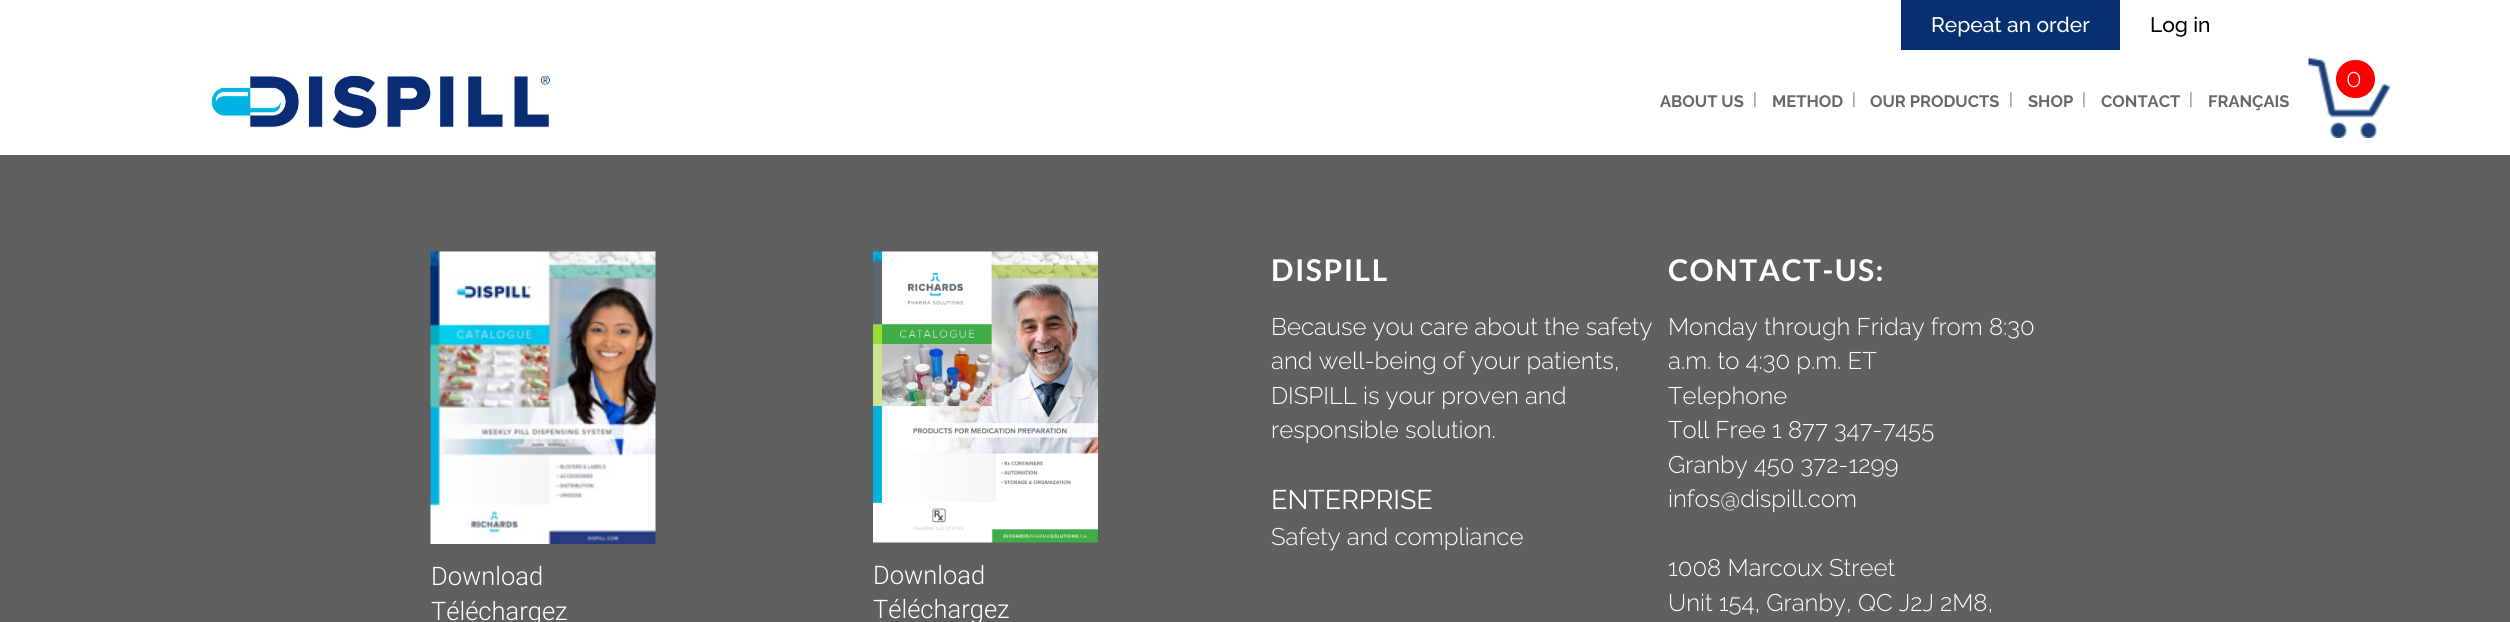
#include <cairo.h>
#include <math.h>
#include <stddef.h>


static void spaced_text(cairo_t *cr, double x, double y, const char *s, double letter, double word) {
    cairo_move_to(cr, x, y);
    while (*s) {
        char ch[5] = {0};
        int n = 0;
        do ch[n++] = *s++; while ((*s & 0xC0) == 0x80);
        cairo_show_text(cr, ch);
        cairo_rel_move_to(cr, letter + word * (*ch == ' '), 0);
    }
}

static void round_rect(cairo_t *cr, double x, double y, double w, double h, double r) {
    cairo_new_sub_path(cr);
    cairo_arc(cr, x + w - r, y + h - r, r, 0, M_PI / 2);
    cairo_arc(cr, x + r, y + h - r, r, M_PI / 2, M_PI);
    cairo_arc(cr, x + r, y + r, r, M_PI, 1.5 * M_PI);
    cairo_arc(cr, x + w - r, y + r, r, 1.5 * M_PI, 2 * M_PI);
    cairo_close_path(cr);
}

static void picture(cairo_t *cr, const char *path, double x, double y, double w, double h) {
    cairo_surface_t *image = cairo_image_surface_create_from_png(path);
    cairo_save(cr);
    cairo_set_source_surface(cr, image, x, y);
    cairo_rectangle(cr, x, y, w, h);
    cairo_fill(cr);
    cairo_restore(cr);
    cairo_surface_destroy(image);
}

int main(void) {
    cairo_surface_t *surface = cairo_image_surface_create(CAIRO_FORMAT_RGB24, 2510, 622);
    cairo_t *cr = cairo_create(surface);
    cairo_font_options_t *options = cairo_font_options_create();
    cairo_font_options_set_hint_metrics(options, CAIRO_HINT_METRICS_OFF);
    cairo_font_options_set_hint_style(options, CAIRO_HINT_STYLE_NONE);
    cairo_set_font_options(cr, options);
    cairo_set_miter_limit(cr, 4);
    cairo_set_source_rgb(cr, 0.376, 0.376, 0.376);
    cairo_paint(cr);
    cairo_set_source_rgb(cr, 1, 1, 1);
    cairo_rectangle(cr, 0, 0, 2510, 155);
    cairo_fill(cr);
    cairo_set_source_rgb(cr, 0.031, 0.188, 0.439);
    cairo_rectangle(cr, 1901, 0, 219, 50);
    cairo_fill(cr);
    cairo_select_font_face(cr, "Raleway Medium", CAIRO_FONT_SLANT_NORMAL, CAIRO_FONT_WEIGHT_NORMAL);
    cairo_set_font_size(cr, 21);
    cairo_set_source_rgb(cr, 1, 1, 1);
    cairo_move_to(cr, 1931, 32);
    cairo_show_text(cr, "Repeat an order");
    cairo_set_source_rgb(cr, 0, 0, 0);
    cairo_move_to(cr, 2150, 32);
    cairo_show_text(cr, "Log in");
    picture(cr, "img1.png", 2308, 57, 83, 81);
    cairo_set_source_rgb(cr, 1, 0, 0);
    round_rect(cr, 2336, 60, 39, 38, 19);
    cairo_fill(cr);
    cairo_select_font_face(cr, "Raleway Light", CAIRO_FONT_SLANT_NORMAL, CAIRO_FONT_WEIGHT_NORMAL);
    cairo_set_font_size(cr, 25.5);
    cairo_set_source_rgb(cr, 1, 1, 1);
    cairo_move_to(cr, 2346, 87);
    cairo_show_text(cr, "0");
    picture(cr, "img2.png", 210, 72, 342, 60);
    cairo_select_font_face(cr, "Raleway", CAIRO_FONT_SLANT_NORMAL, CAIRO_FONT_WEIGHT_BOLD);
    cairo_set_font_size(cr, 16.5);
    cairo_set_source_rgb(cr, 0.412, 0.412, 0.412);
    cairo_move_to(cr, 1660, 107);
    cairo_show_text(cr, "ABOUT US");
    cairo_select_font_face(cr, "Raleway", CAIRO_FONT_SLANT_NORMAL, CAIRO_FONT_WEIGHT_NORMAL);
    cairo_move_to(cr, 1753, 105);
    cairo_show_text(cr, "|");
    cairo_select_font_face(cr, "Raleway", CAIRO_FONT_SLANT_NORMAL, CAIRO_FONT_WEIGHT_BOLD);
    cairo_move_to(cr, 1772, 107);
    cairo_show_text(cr, "METHOD");
    cairo_select_font_face(cr, "Raleway", CAIRO_FONT_SLANT_NORMAL, CAIRO_FONT_WEIGHT_NORMAL);
    cairo_move_to(cr, 1852, 105);
    cairo_show_text(cr, "|");
    cairo_select_font_face(cr, "Raleway", CAIRO_FONT_SLANT_NORMAL, CAIRO_FONT_WEIGHT_BOLD);
    cairo_move_to(cr, 1870, 107);
    cairo_show_text(cr, "OUR PRODUCTS");
    cairo_select_font_face(cr, "Raleway", CAIRO_FONT_SLANT_NORMAL, CAIRO_FONT_WEIGHT_NORMAL);
    cairo_move_to(cr, 2009, 105);
    cairo_show_text(cr, "|");
    cairo_select_font_face(cr, "Raleway", CAIRO_FONT_SLANT_NORMAL, CAIRO_FONT_WEIGHT_BOLD);
    cairo_move_to(cr, 2028, 107);
    cairo_show_text(cr, "SHOP");
    cairo_select_font_face(cr, "Raleway", CAIRO_FONT_SLANT_NORMAL, CAIRO_FONT_WEIGHT_NORMAL);
    cairo_move_to(cr, 2082, 105);
    cairo_show_text(cr, "|");
    cairo_select_font_face(cr, "Raleway", CAIRO_FONT_SLANT_NORMAL, CAIRO_FONT_WEIGHT_BOLD);
    cairo_move_to(cr, 2101, 107);
    cairo_show_text(cr, "CONTACT");
    cairo_select_font_face(cr, "Raleway", CAIRO_FONT_SLANT_NORMAL, CAIRO_FONT_WEIGHT_NORMAL);
    cairo_move_to(cr, 2189, 105);
    cairo_show_text(cr, "|");
    cairo_select_font_face(cr, "Raleway", CAIRO_FONT_SLANT_NORMAL, CAIRO_FONT_WEIGHT_BOLD);
    cairo_move_to(cr, 2208, 107);
    cairo_show_text(cr, "FRANÇAIS");
    picture(cr, "img3.png", 430, 251, 226, 293);
    cairo_select_font_face(cr, "Roboto Light", CAIRO_FONT_SLANT_NORMAL, CAIRO_FONT_WEIGHT_NORMAL);
    cairo_set_font_size(cr, 25.5);
    cairo_set_source_rgb(cr, 1, 1, 1);
    cairo_move_to(cr, 431, 585);
    cairo_show_text(cr, "Download");
    cairo_move_to(cr, 431, 620);
    cairo_show_text(cr, "Téléchargez");
    picture(cr, "img4.png", 873, 251, 225, 292);
    cairo_move_to(cr, 873, 584);
    cairo_show_text(cr, "Download");
    cairo_move_to(cr, 873, 618);
    cairo_show_text(cr, "Téléchargez");
    cairo_select_font_face(cr, "Lato", CAIRO_FONT_SLANT_NORMAL, CAIRO_FONT_WEIGHT_BOLD);
    cairo_set_font_size(cr, 30);
    spaced_text(cr, 1271, 281, "DISPILL", 1.5, 0);
    cairo_select_font_face(cr, "Raleway Light", CAIRO_FONT_SLANT_NORMAL, CAIRO_FONT_WEIGHT_NORMAL);
    cairo_set_font_size(cr, 24);
    cairo_move_to(cr, 1271, 335);
    cairo_show_text(cr, "Because you care about the safety");
    cairo_move_to(cr, 1271, 369);
    cairo_show_text(cr, "and well-being of your patients,");
    cairo_move_to(cr, 1271, 404);
    cairo_show_text(cr, "DISPILL is your proven and");
    cairo_move_to(cr, 1271, 438);
    cairo_show_text(cr, "responsible solution.");
    cairo_select_font_face(cr, "Raleway", CAIRO_FONT_SLANT_NORMAL, CAIRO_FONT_WEIGHT_NORMAL);
    cairo_set_font_size(cr, 27);
    cairo_move_to(cr, 1271, 509);
    cairo_show_text(cr, "ENTERPRISE");
    cairo_select_font_face(cr, "Raleway Light", CAIRO_FONT_SLANT_NORMAL, CAIRO_FONT_WEIGHT_NORMAL);
    cairo_set_font_size(cr, 24);
    cairo_move_to(cr, 1271, 545);
    cairo_show_text(cr, "Safety and compliance");
    cairo_select_font_face(cr, "Lato", CAIRO_FONT_SLANT_NORMAL, CAIRO_FONT_WEIGHT_BOLD);
    cairo_set_font_size(cr, 30);
    spaced_text(cr, 1668, 281, "CONTACT-US:", 1.5, 0);
    cairo_select_font_face(cr, "Raleway Light", CAIRO_FONT_SLANT_NORMAL, CAIRO_FONT_WEIGHT_NORMAL);
    cairo_set_font_size(cr, 24);
    cairo_move_to(cr, 1668, 335);
    cairo_show_text(cr, "Monday through Friday from 8:30");
    cairo_move_to(cr, 1668, 369);
    cairo_show_text(cr, "a.m. to 4:30 p.m. ET");
    cairo_move_to(cr, 1668, 404);
    cairo_show_text(cr, "Telephone");
    cairo_move_to(cr, 1668, 438);
    cairo_show_text(cr, "Toll Free 1 877 347-7455");
    cairo_move_to(cr, 1668, 473);
    cairo_show_text(cr, "Granby 450 372-1299");
    cairo_move_to(cr, 1668, 507);
    cairo_show_text(cr, "infos@dispill.com");
    cairo_move_to(cr, 1668, 576);
    cairo_show_text(cr, "1008 Marcoux Street");
    cairo_move_to(cr, 1668, 611);
    cairo_show_text(cr, "Unit 154, Granby, QC J2J 2M8,");
    cairo_surface_write_to_png(surface, "page.png");
    cairo_font_options_destroy(options);
    cairo_destroy(cr);
    cairo_surface_destroy(surface);
    return 0;
}
